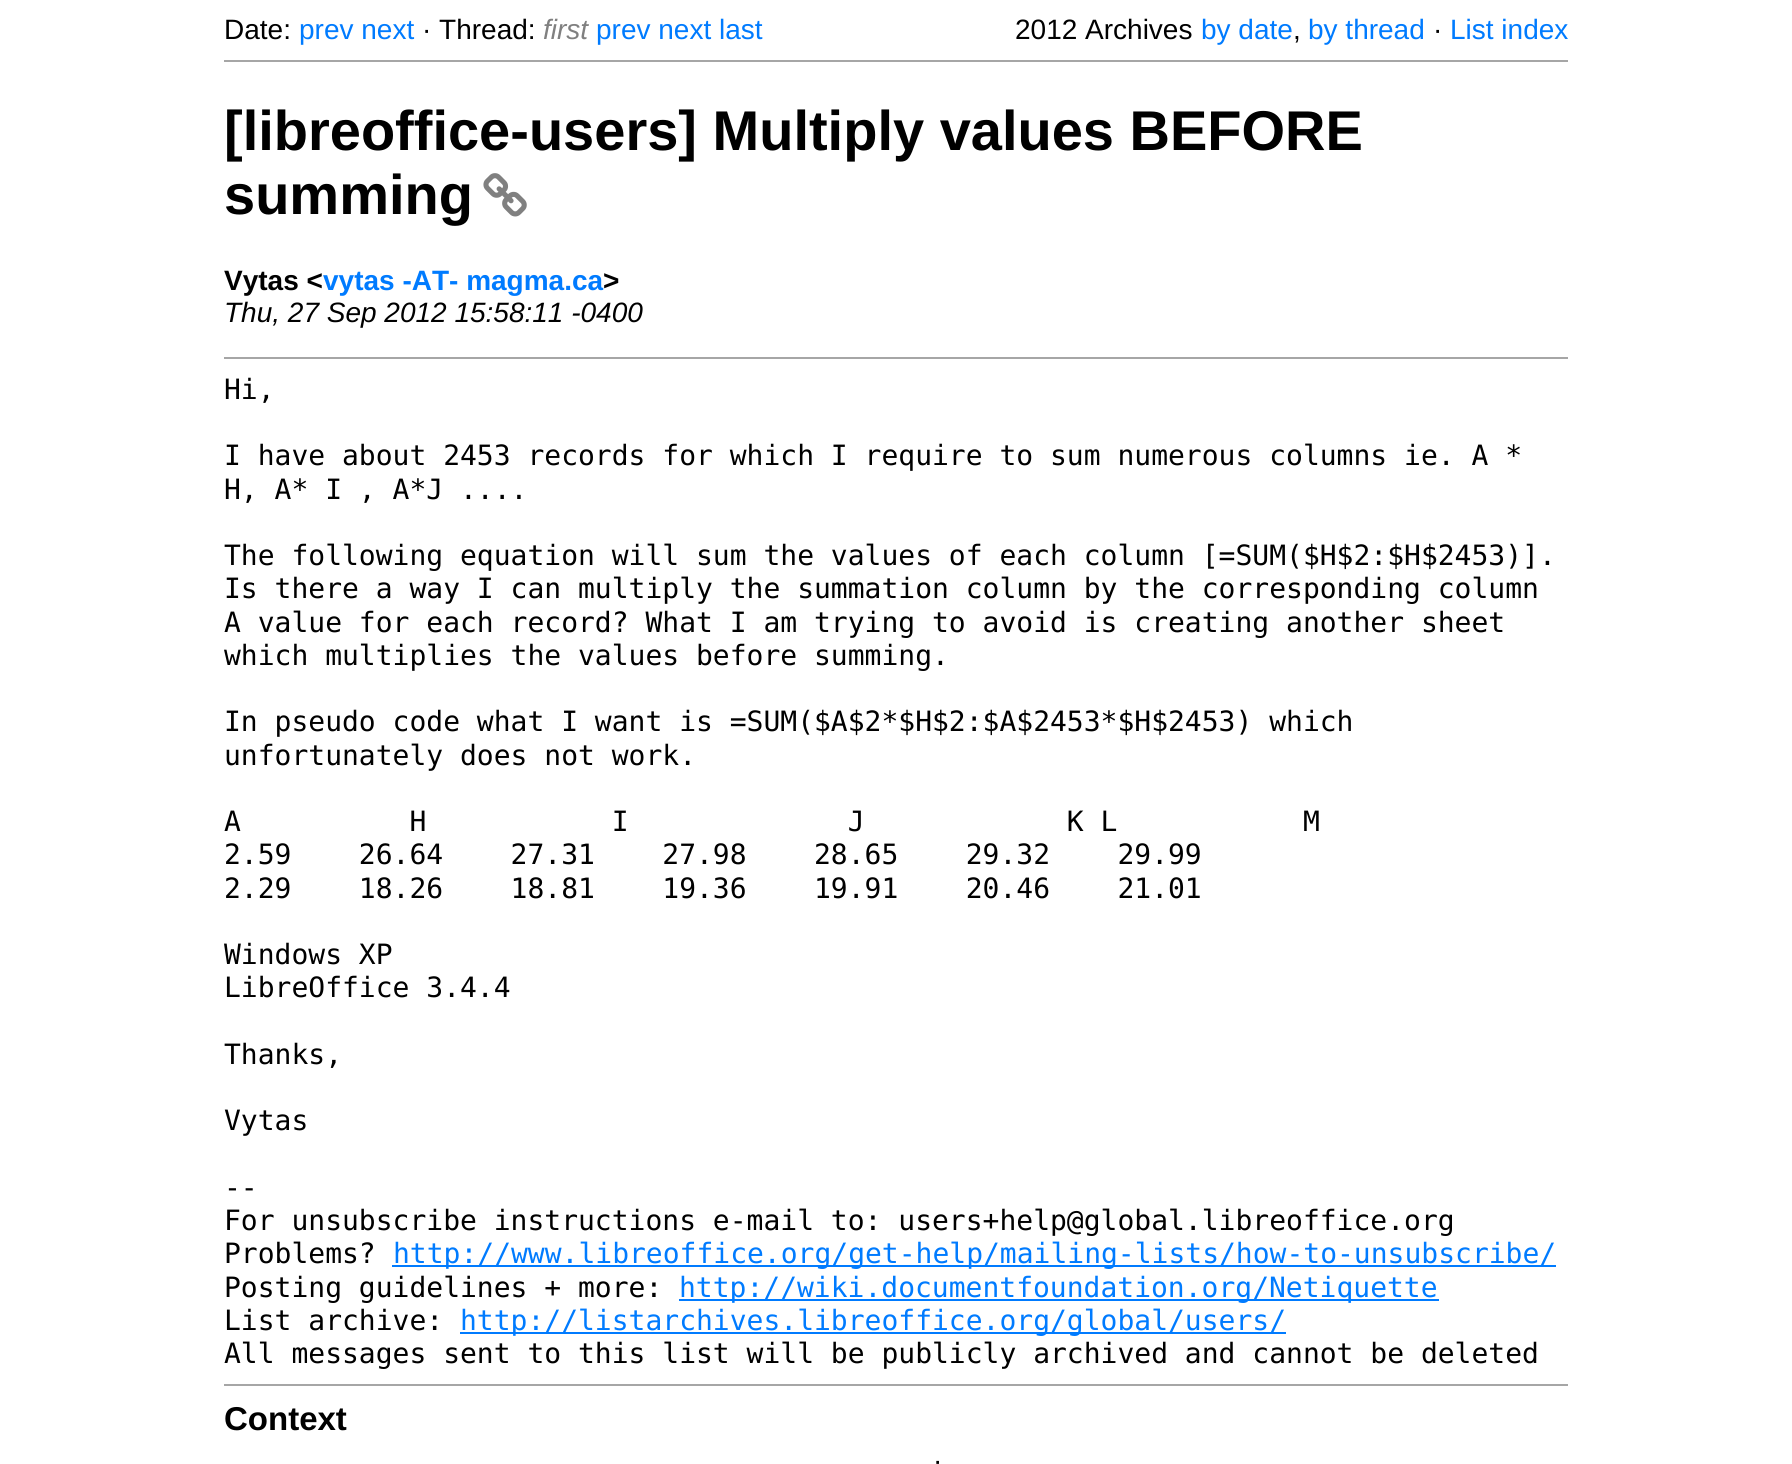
#include <cairo.h>
#include <math.h>
#include <stddef.h>


static void picture(cairo_t *cr, const char *path, double x, double y, double w, double h) {
    cairo_surface_t *image = cairo_image_surface_create_from_png(path);
    cairo_save(cr);
    cairo_set_source_surface(cr, image, x, y);
    cairo_rectangle(cr, x, y, w, h);
    cairo_fill(cr);
    cairo_restore(cr);
    cairo_surface_destroy(image);
}

int main(void) {
    cairo_surface_t *surface = cairo_image_surface_create(CAIRO_FORMAT_RGB24, 1792, 1464);
    cairo_t *cr = cairo_create(surface);
    cairo_font_options_t *options = cairo_font_options_create();
    cairo_font_options_set_hint_metrics(options, CAIRO_HINT_METRICS_OFF);
    cairo_font_options_set_hint_style(options, CAIRO_HINT_STYLE_NONE);
    cairo_set_font_options(cr, options);
    cairo_set_miter_limit(cr, 4);
    cairo_set_source_rgb(cr, 1, 1, 1);
    cairo_paint(cr);
    cairo_select_font_face(cr, "Liberation Sans", CAIRO_FONT_SLANT_NORMAL, CAIRO_FONT_WEIGHT_NORMAL);
    cairo_set_font_size(cr, 28);
    cairo_set_source_rgb(cr, 0, 0, 0);
    cairo_move_to(cr, 224, 39);
    cairo_show_text(cr, "Date:");
    cairo_set_source_rgb(cr, 0, 0.482, 1);
    cairo_move_to(cr, 299, 39);
    cairo_show_text(cr, "prev next");
    cairo_set_source_rgb(cr, 0, 0, 0);
    cairo_move_to(cr, 422, 39);
    cairo_show_text(cr, "· Thread:");
    cairo_select_font_face(cr, "Liberation Sans", CAIRO_FONT_SLANT_ITALIC, CAIRO_FONT_WEIGHT_NORMAL);
    cairo_set_source_rgb(cr, 0.502, 0.502, 0.502);
    cairo_move_to(cr, 543, 39);
    cairo_show_text(cr, "first");
    cairo_select_font_face(cr, "Liberation Sans", CAIRO_FONT_SLANT_NORMAL, CAIRO_FONT_WEIGHT_NORMAL);
    cairo_set_source_rgb(cr, 0, 0.482, 1);
    cairo_move_to(cr, 596, 39);
    cairo_show_text(cr, "prev next last");
    cairo_set_source_rgb(cr, 0, 0, 0);
    cairo_move_to(cr, 1015, 39);
    cairo_show_text(cr, "2012 Archives");
    cairo_set_source_rgb(cr, 0, 0.482, 1);
    cairo_move_to(cr, 1201, 39);
    cairo_show_text(cr, "by date");
    cairo_move_to(cr, 1308, 39);
    cairo_show_text(cr, "by thread");
    cairo_set_source_rgb(cr, 0, 0, 0);
    cairo_move_to(cr, 1433, 39);
    cairo_show_text(cr, "·");
    cairo_set_source_rgb(cr, 0, 0.482, 1);
    cairo_move_to(cr, 1450, 39);
    cairo_show_text(cr, "List index");
    cairo_set_source_rgb(cr, 0, 0, 0);
    cairo_move_to(cr, 1293, 39);
    cairo_show_text(cr, ",");
    cairo_set_source_rgb(cr, 0.651, 0.651, 0.651);
    cairo_rectangle(cr, 224, 60, 1344, 2);
    cairo_fill(cr);
    cairo_select_font_face(cr, "Liberation Sans", CAIRO_FONT_SLANT_NORMAL, CAIRO_FONT_WEIGHT_BOLD);
    cairo_set_font_size(cr, 56);
    cairo_set_source_rgb(cr, 0, 0, 0);
    cairo_move_to(cr, 224, 150);
    cairo_show_text(cr, "[libreoffice-users] Multiply values BEFORE");
    cairo_move_to(cr, 224, 214);
    cairo_show_text(cr, "summing");
    picture(cr, "img1.png", 483, 173, 44, 44);
    cairo_set_font_size(cr, 28);
    cairo_move_to(cr, 224, 290);
    cairo_show_text(cr, "Vytas <");
    cairo_set_source_rgb(cr, 0, 0.482, 1);
    cairo_move_to(cr, 323, 290);
    cairo_show_text(cr, "vytas -AT- magma.ca");
    cairo_set_source_rgb(cr, 0, 0, 0);
    cairo_move_to(cr, 603, 290);
    cairo_show_text(cr, ">");
    cairo_select_font_face(cr, "Liberation Sans", CAIRO_FONT_SLANT_ITALIC, CAIRO_FONT_WEIGHT_NORMAL);
    cairo_move_to(cr, 224, 322);
    cairo_show_text(cr, "Thu, 27 Sep 2012 15:58:11 -0400");
    cairo_set_source_rgb(cr, 0.651, 0.651, 0.651);
    cairo_rectangle(cr, 224, 357, 1344, 2);
    cairo_fill(cr);
    cairo_select_font_face(cr, "DejaVu Sans Mono", CAIRO_FONT_SLANT_NORMAL, CAIRO_FONT_WEIGHT_NORMAL);
    cairo_set_source_rgb(cr, 0, 0, 0);
    cairo_move_to(cr, 224, 399);
    cairo_show_text(cr, "Hi,");
    cairo_move_to(cr, 224, 465);
    cairo_show_text(cr, "I have about 2453 records for which I require to sum numerous columns ie. A *");
    cairo_move_to(cr, 224, 499);
    cairo_show_text(cr, "H, A* I , A*J ....");
    cairo_move_to(cr, 224, 565);
    cairo_show_text(cr, "The following equation will sum the values of each column [=SUM($H$2:$H$2453)].");
    cairo_move_to(cr, 224, 598);
    cairo_show_text(cr, "Is there a way I can multiply the summation column by the corresponding column");
    cairo_move_to(cr, 224, 632);
    cairo_show_text(cr, "A value for each record? What I am trying to avoid is creating another sheet");
    cairo_move_to(cr, 224, 665);
    cairo_show_text(cr, "which multiplies the values before summing.");
    cairo_move_to(cr, 224, 731);
    cairo_show_text(cr, "In pseudo code what I want is =SUM($A$2*$H$2:$A$2453*$H$2453) which");
    cairo_move_to(cr, 224, 765);
    cairo_show_text(cr, "unfortunately does not work.");
    cairo_move_to(cr, 224, 831);
    cairo_show_text(cr, "A          H           I             J            K L           M");
    cairo_move_to(cr, 224, 864);
    cairo_show_text(cr, "2.59    26.64    27.31    27.98    28.65    29.32    29.99");
    cairo_move_to(cr, 224, 898);
    cairo_show_text(cr, "2.29    18.26    18.81    19.36    19.91    20.46    21.01");
    cairo_move_to(cr, 224, 964);
    cairo_show_text(cr, "Windows XP");
    cairo_move_to(cr, 224, 997);
    cairo_show_text(cr, "LibreOffice 3.4.4");
    cairo_move_to(cr, 224, 1064);
    cairo_show_text(cr, "Thanks,");
    cairo_move_to(cr, 224, 1130);
    cairo_show_text(cr, "Vytas");
    cairo_move_to(cr, 224, 1197);
    cairo_show_text(cr, "--");
    cairo_move_to(cr, 224, 1230);
    cairo_show_text(cr, "For unsubscribe instructions e-mail to: users+help@global.libreoffice.org");
    cairo_move_to(cr, 224, 1263);
    cairo_show_text(cr, "Problems?");
    cairo_set_source_rgb(cr, 0, 0.482, 1);
    cairo_rectangle(cr, 392, 1265, 1164, 2);
    cairo_fill(cr);
    cairo_move_to(cr, 393, 1263);
    cairo_show_text(cr, "http://www.libreoffice.org/get-help/mailing-lists/how-to-unsubscribe/");
    cairo_set_source_rgb(cr, 0, 0, 0);
    cairo_move_to(cr, 224, 1297);
    cairo_show_text(cr, "Posting guidelines + more:");
    cairo_set_source_rgb(cr, 0, 0.482, 1);
    cairo_rectangle(cr, 679, 1299, 760, 2);
    cairo_fill(cr);
    cairo_move_to(cr, 679, 1297);
    cairo_show_text(cr, "http://wiki.documentfoundation.org/Netiquette");
    cairo_set_source_rgb(cr, 0, 0, 0);
    cairo_move_to(cr, 224, 1330);
    cairo_show_text(cr, "List archive:");
    cairo_set_source_rgb(cr, 0, 0.482, 1);
    cairo_rectangle(cr, 460, 1332, 826, 2);
    cairo_fill(cr);
    cairo_move_to(cr, 460, 1330);
    cairo_show_text(cr, "http://listarchives.libreoffice.org/global/users/");
    cairo_set_source_rgb(cr, 0, 0, 0);
    cairo_move_to(cr, 224, 1363);
    cairo_show_text(cr, "All messages sent to this list will be publicly archived and cannot be deleted");
    cairo_set_source_rgb(cr, 0.651, 0.651, 0.651);
    cairo_rectangle(cr, 224, 1384, 1344, 2);
    cairo_fill(cr);
    cairo_select_font_face(cr, "Liberation Sans", CAIRO_FONT_SLANT_NORMAL, CAIRO_FONT_WEIGHT_BOLD);
    cairo_set_font_size(cr, 33);
    cairo_set_source_rgb(cr, 0, 0, 0);
    cairo_move_to(cr, 224, 1430);
    cairo_show_text(cr, "Context");
    cairo_select_font_face(cr, "Liberation Sans", CAIRO_FONT_SLANT_NORMAL, CAIRO_FONT_WEIGHT_NORMAL);
    cairo_set_font_size(cr, 28);
    cairo_move_to(cr, 933, 1470);
    cairo_show_text(cr, "·");
    cairo_surface_write_to_png(surface, "page.png");
    cairo_font_options_destroy(options);
    cairo_destroy(cr);
    cairo_surface_destroy(surface);
    return 0;
}
